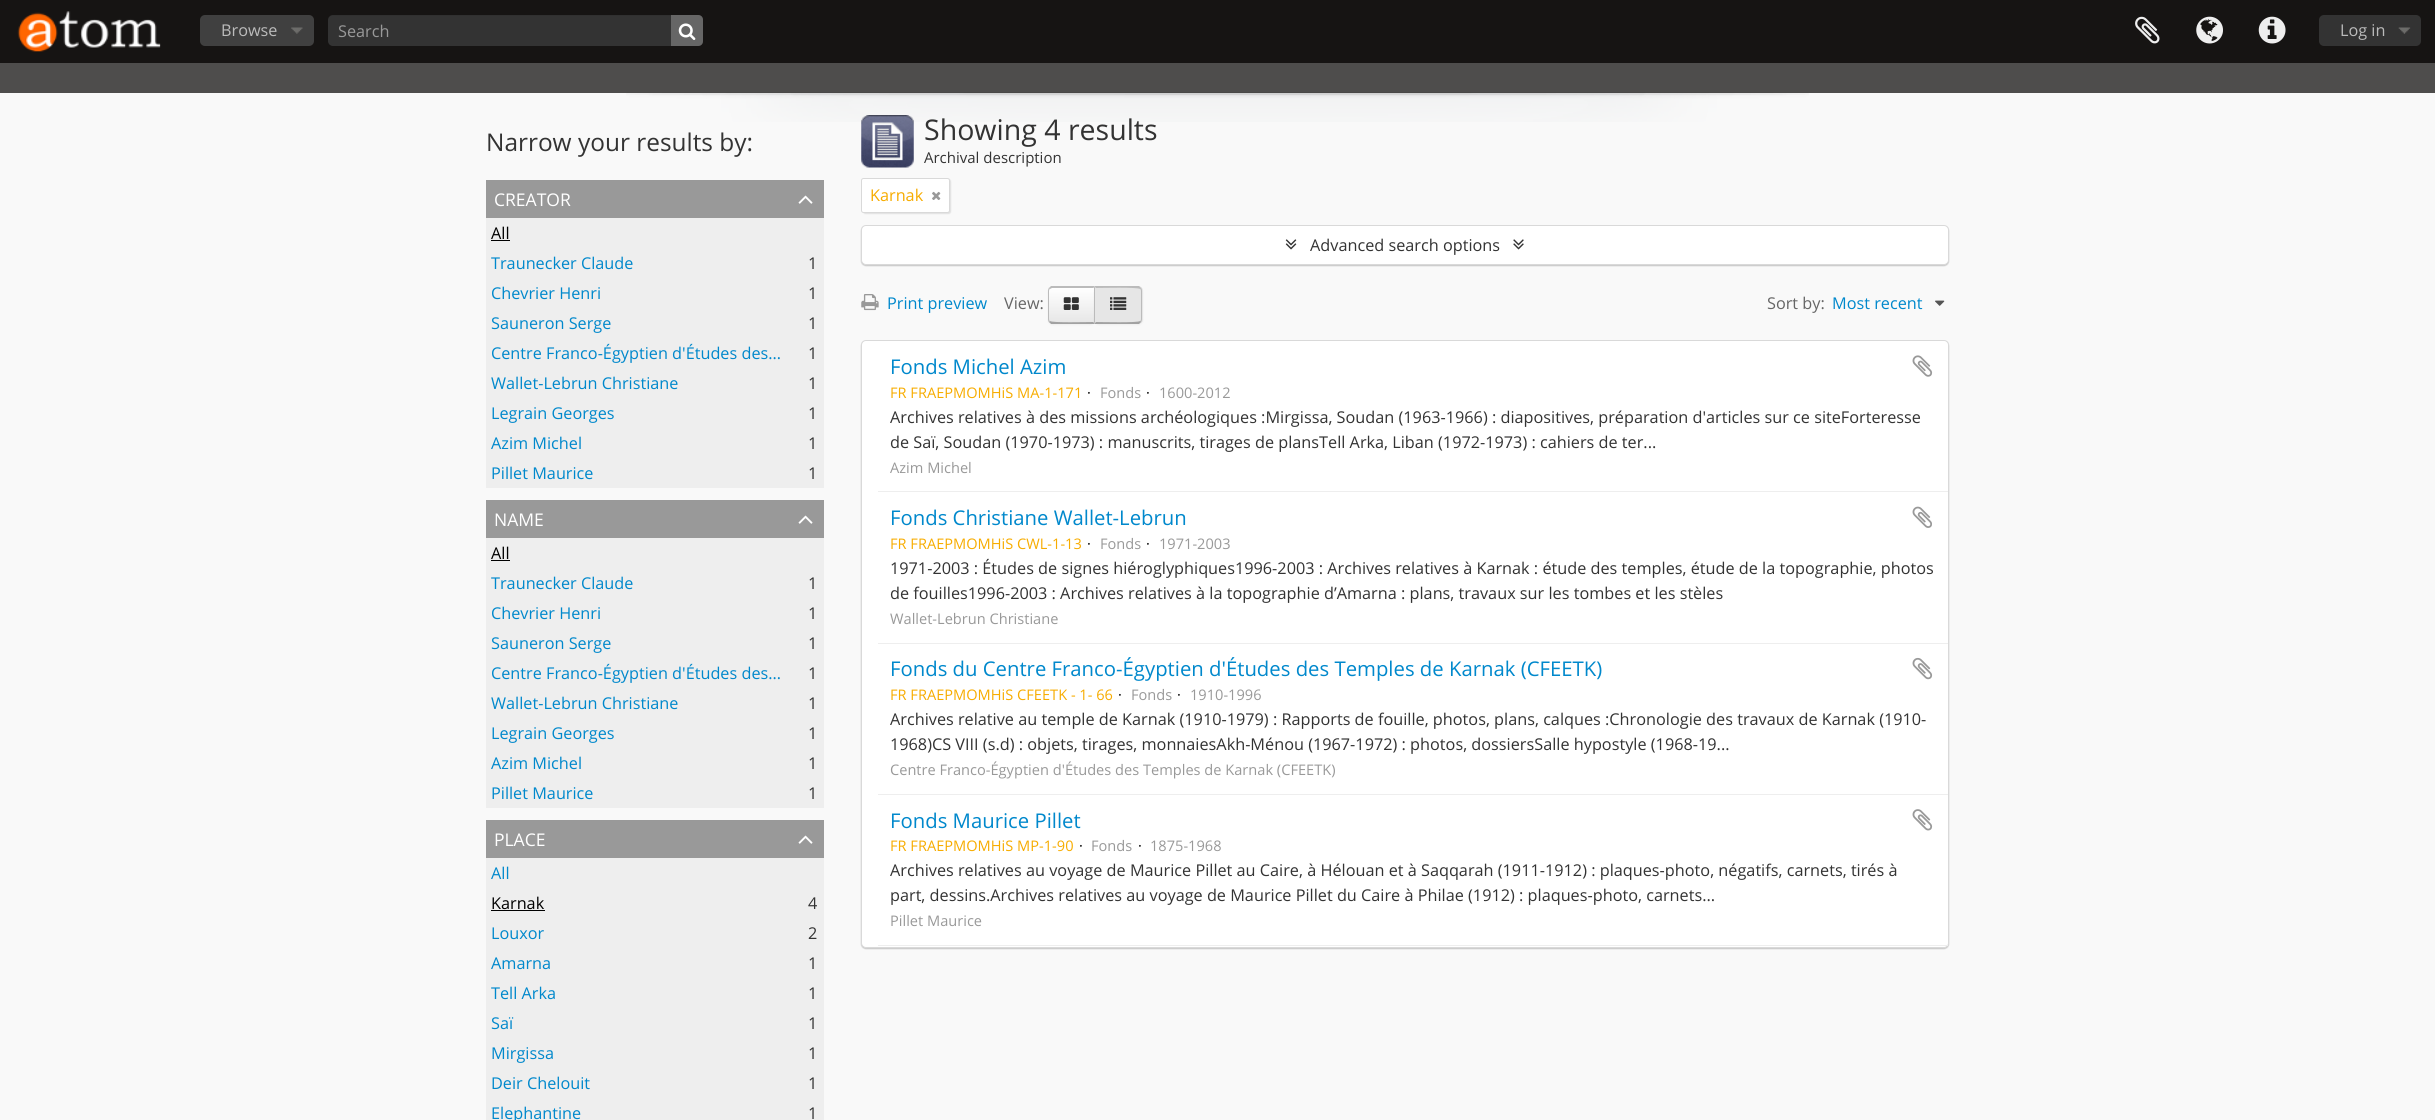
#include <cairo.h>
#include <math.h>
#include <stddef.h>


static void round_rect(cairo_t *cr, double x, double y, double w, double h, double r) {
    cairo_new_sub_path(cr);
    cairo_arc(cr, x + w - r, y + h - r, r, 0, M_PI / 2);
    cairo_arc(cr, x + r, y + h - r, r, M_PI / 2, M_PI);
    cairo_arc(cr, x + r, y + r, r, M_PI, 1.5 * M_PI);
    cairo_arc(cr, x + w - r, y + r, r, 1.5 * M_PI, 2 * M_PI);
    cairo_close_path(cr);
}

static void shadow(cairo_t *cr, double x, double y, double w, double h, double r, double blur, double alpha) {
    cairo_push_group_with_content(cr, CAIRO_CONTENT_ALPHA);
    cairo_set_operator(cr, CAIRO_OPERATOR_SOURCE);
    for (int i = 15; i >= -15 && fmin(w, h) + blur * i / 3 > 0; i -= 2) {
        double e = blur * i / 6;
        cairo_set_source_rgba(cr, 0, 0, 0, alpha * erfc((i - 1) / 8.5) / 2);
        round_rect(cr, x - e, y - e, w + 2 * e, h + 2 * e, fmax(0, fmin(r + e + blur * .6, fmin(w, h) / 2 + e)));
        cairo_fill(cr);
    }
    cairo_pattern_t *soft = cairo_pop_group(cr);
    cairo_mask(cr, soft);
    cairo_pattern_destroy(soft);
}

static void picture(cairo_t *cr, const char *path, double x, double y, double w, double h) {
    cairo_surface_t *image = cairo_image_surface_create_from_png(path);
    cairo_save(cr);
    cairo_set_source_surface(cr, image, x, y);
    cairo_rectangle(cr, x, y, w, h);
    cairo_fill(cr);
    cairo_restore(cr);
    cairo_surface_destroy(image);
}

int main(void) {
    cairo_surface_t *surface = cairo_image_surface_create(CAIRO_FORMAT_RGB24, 2435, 1120);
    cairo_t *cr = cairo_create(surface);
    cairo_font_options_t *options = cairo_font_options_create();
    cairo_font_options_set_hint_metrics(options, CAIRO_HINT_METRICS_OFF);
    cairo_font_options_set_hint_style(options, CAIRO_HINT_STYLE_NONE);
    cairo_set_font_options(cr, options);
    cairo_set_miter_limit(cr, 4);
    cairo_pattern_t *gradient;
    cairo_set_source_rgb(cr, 0.973, 0.973, 0.973);
    cairo_paint(cr);
    cairo_set_source_rgb(cr, 0.086, 0.082, 0.078);
    cairo_rectangle(cr, 0, 0, 2435, 63);
    cairo_fill(cr);
    picture(cr, "img1.png", 17, 11, 144, 41);
    cairo_set_source_rgb(cr, 0.251, 0.251, 0.251);
    round_rect(cr, 200, 15, 114, 31, 5);
    cairo_fill(cr);
    picture(cr, "img2.png", 291, 27, 12, 7);
    cairo_select_font_face(cr, "Open Sans", CAIRO_FONT_SLANT_NORMAL, CAIRO_FONT_WEIGHT_NORMAL);
    cairo_set_font_size(cr, 16.25);
    cairo_set_source_rgb(cr, 0.733, 0.733, 0.733);
    cairo_move_to(cr, 221, 36);
    cairo_show_text(cr, "Browse");
    cairo_set_source_rgb(cr, 0.2, 0.2, 0.2);
    round_rect(cr, 328, 15, 375, 31, 5);
    cairo_fill(cr);
    cairo_set_source_rgba(cr, 0, 0, 0, 0.07);
    cairo_new_path(cr);
    cairo_move_to(cr, 332, 16);
    cairo_line_to(cr, 698, 16);
    cairo_curve_to(cr, 700, 16, 702, 18, 702, 21);
    cairo_line_to(cr, 702, 42);
    cairo_line_to(cr, 702, 45);
    cairo_curve_to(cr, 702, 44, 703, 42, 703, 41);
    cairo_line_to(cr, 703, 20);
    cairo_curve_to(cr, 703, 17, 701, 15, 698, 15);
    cairo_line_to(cr, 333, 15);
    cairo_curve_to(cr, 330, 15, 328, 17, 328, 20);
    cairo_line_to(cr, 328, 21);
    cairo_curve_to(cr, 328, 18, 330, 16, 332, 16);
    cairo_close_path(cr);
    cairo_fill(cr);
    cairo_set_source_rgb(cr, 0.6, 0.6, 0.6);
    cairo_move_to(cr, 338, 37);
    cairo_show_text(cr, "Search");
    cairo_set_source_rgb(cr, 0.4, 0.4, 0.4);
    cairo_new_path(cr);
    cairo_move_to(cr, 671, 15);
    cairo_line_to(cr, 698, 15);
    cairo_curve_to(cr, 701, 15, 703, 17, 703, 20);
    cairo_line_to(cr, 703, 41);
    cairo_curve_to(cr, 703, 44, 701, 46, 698, 46);
    cairo_line_to(cr, 671, 46);
    cairo_close_path(cr);
    cairo_fill(cr);
    picture(cr, "img3.png", 678, 23, 18, 17);
    picture(cr, "img4.png", 2135, 16, 25, 28);
    picture(cr, "img5.png", 2196, 16, 27, 28);
    picture(cr, "img6.png", 2258, 16, 28, 28);
    cairo_set_source_rgb(cr, 0.2, 0.2, 0.2);
    round_rect(cr, 2319, 15, 102, 31, 5);
    cairo_fill(cr);
    picture(cr, "img7.png", 2398, 27, 13, 7);
    cairo_set_source_rgb(cr, 0.733, 0.733, 0.733);
    cairo_move_to(cr, 2340, 36);
    cairo_show_text(cr, "Log in");
    picture(cr, "img8.png", 626, 92, 1183, 30);
    cairo_set_source_rgba(cr, 0.086, 0.082, 0.078, 0.75);
    cairo_rectangle(cr, 0, 63, 2435, 30);
    cairo_fill(cr);
    cairo_set_font_size(cr, 24.4);
    cairo_set_source_rgb(cr, 0.2, 0.2, 0.2);
    cairo_move_to(cr, 486, 151);
    cairo_show_text(cr, "Narrow your results by:");
    cairo_set_source_rgb(cr, 0.6, 0.6, 0.6);
    cairo_rectangle(cr, 486, 180, 338, 38);
    cairo_fill(cr);
    cairo_set_font_size(cr, 17.5);
    cairo_set_source_rgb(cr, 1, 1, 1);
    cairo_move_to(cr, 494, 206);
    cairo_show_text(cr, "CREATOR");
    picture(cr, "img9.png", 798, 195, 15, 9);
    cairo_set_source_rgb(cr, 0.933, 0.933, 0.933);
    cairo_rectangle(cr, 486, 218, 338, 270);
    cairo_fill(cr);
    cairo_set_font_size(cr, 16.25);
    cairo_set_source_rgb(cr, 0, 0, 0);
    cairo_move_to(cr, 491, 239);
    cairo_show_text(cr, "All");
    cairo_rectangle(cr, 491, 240, 19, 1);
    cairo_fill(cr);
    cairo_set_source_rgb(cr, 0, 0.533, 0.8);
    cairo_move_to(cr, 491, 269);
    cairo_show_text(cr, "Traunecker Claude");
    cairo_set_source_rgb(cr, 0.2, 0.2, 0.2);
    cairo_move_to(cr, 808, 269);
    cairo_show_text(cr, "1");
    cairo_set_source_rgb(cr, 0, 0.533, 0.8);
    cairo_move_to(cr, 491, 299);
    cairo_show_text(cr, "Chevrier Henri");
    cairo_set_source_rgb(cr, 0.2, 0.2, 0.2);
    cairo_move_to(cr, 808, 299);
    cairo_show_text(cr, "1");
    cairo_set_source_rgb(cr, 0, 0.533, 0.8);
    cairo_move_to(cr, 491, 329);
    cairo_show_text(cr, "Sauneron Serge");
    cairo_set_source_rgb(cr, 0.2, 0.2, 0.2);
    cairo_move_to(cr, 808, 329);
    cairo_show_text(cr, "1");
    cairo_set_source_rgb(cr, 0, 0.533, 0.8);
    cairo_move_to(cr, 491, 359);
    cairo_show_text(cr, "Centre Franco-Égyptien d'Études des…");
    cairo_set_source_rgb(cr, 0.2, 0.2, 0.2);
    cairo_move_to(cr, 808, 359);
    cairo_show_text(cr, "1");
    cairo_set_source_rgb(cr, 0, 0.533, 0.8);
    cairo_move_to(cr, 491, 389);
    cairo_show_text(cr, "Wallet-Lebrun Christiane");
    cairo_set_source_rgb(cr, 0.2, 0.2, 0.2);
    cairo_move_to(cr, 808, 389);
    cairo_show_text(cr, "1");
    cairo_set_source_rgb(cr, 0, 0.533, 0.8);
    cairo_move_to(cr, 491, 419);
    cairo_show_text(cr, "Legrain Georges");
    cairo_set_source_rgb(cr, 0.2, 0.2, 0.2);
    cairo_move_to(cr, 808, 419);
    cairo_show_text(cr, "1");
    cairo_set_source_rgb(cr, 0, 0.533, 0.8);
    cairo_move_to(cr, 491, 449);
    cairo_show_text(cr, "Azim Michel");
    cairo_set_source_rgb(cr, 0.2, 0.2, 0.2);
    cairo_move_to(cr, 808, 449);
    cairo_show_text(cr, "1");
    cairo_set_source_rgb(cr, 0, 0.533, 0.8);
    cairo_move_to(cr, 491, 479);
    cairo_show_text(cr, "Pillet Maurice");
    cairo_set_source_rgb(cr, 0.2, 0.2, 0.2);
    cairo_move_to(cr, 808, 479);
    cairo_show_text(cr, "1");
    cairo_set_source_rgb(cr, 0.6, 0.6, 0.6);
    cairo_rectangle(cr, 486, 500, 338, 38);
    cairo_fill(cr);
    cairo_set_font_size(cr, 17.5);
    cairo_set_source_rgb(cr, 1, 1, 1);
    cairo_move_to(cr, 494, 526);
    cairo_show_text(cr, "NAME");
    picture(cr, "img9.png", 798, 515, 15, 9);
    cairo_set_source_rgb(cr, 0.933, 0.933, 0.933);
    cairo_rectangle(cr, 486, 538, 338, 270);
    cairo_fill(cr);
    cairo_set_font_size(cr, 16.25);
    cairo_set_source_rgb(cr, 0, 0, 0);
    cairo_move_to(cr, 491, 559);
    cairo_show_text(cr, "All");
    cairo_rectangle(cr, 491, 560, 19, 1);
    cairo_fill(cr);
    cairo_set_source_rgb(cr, 0, 0.533, 0.8);
    cairo_move_to(cr, 491, 589);
    cairo_show_text(cr, "Traunecker Claude");
    cairo_set_source_rgb(cr, 0.2, 0.2, 0.2);
    cairo_move_to(cr, 808, 589);
    cairo_show_text(cr, "1");
    cairo_set_source_rgb(cr, 0, 0.533, 0.8);
    cairo_move_to(cr, 491, 619);
    cairo_show_text(cr, "Chevrier Henri");
    cairo_set_source_rgb(cr, 0.2, 0.2, 0.2);
    cairo_move_to(cr, 808, 619);
    cairo_show_text(cr, "1");
    cairo_set_source_rgb(cr, 0, 0.533, 0.8);
    cairo_move_to(cr, 491, 649);
    cairo_show_text(cr, "Sauneron Serge");
    cairo_set_source_rgb(cr, 0.2, 0.2, 0.2);
    cairo_move_to(cr, 808, 649);
    cairo_show_text(cr, "1");
    cairo_set_source_rgb(cr, 0, 0.533, 0.8);
    cairo_move_to(cr, 491, 679);
    cairo_show_text(cr, "Centre Franco-Égyptien d'Études des…");
    cairo_set_source_rgb(cr, 0.2, 0.2, 0.2);
    cairo_move_to(cr, 808, 679);
    cairo_show_text(cr, "1");
    cairo_set_source_rgb(cr, 0, 0.533, 0.8);
    cairo_move_to(cr, 491, 709);
    cairo_show_text(cr, "Wallet-Lebrun Christiane");
    cairo_set_source_rgb(cr, 0.2, 0.2, 0.2);
    cairo_move_to(cr, 808, 709);
    cairo_show_text(cr, "1");
    cairo_set_source_rgb(cr, 0, 0.533, 0.8);
    cairo_move_to(cr, 491, 739);
    cairo_show_text(cr, "Legrain Georges");
    cairo_set_source_rgb(cr, 0.2, 0.2, 0.2);
    cairo_move_to(cr, 808, 739);
    cairo_show_text(cr, "1");
    cairo_set_source_rgb(cr, 0, 0.533, 0.8);
    cairo_move_to(cr, 491, 769);
    cairo_show_text(cr, "Azim Michel");
    cairo_set_source_rgb(cr, 0.2, 0.2, 0.2);
    cairo_move_to(cr, 808, 769);
    cairo_show_text(cr, "1");
    cairo_set_source_rgb(cr, 0, 0.533, 0.8);
    cairo_move_to(cr, 491, 799);
    cairo_show_text(cr, "Pillet Maurice");
    cairo_set_source_rgb(cr, 0.2, 0.2, 0.2);
    cairo_move_to(cr, 808, 799);
    cairo_show_text(cr, "1");
    cairo_set_source_rgb(cr, 0.6, 0.6, 0.6);
    cairo_rectangle(cr, 486, 820, 338, 38);
    cairo_fill(cr);
    cairo_set_font_size(cr, 17.5);
    cairo_set_source_rgb(cr, 1, 1, 1);
    cairo_move_to(cr, 494, 846);
    cairo_show_text(cr, "PLACE");
    picture(cr, "img9.png", 798, 835, 15, 9);
    cairo_set_source_rgb(cr, 0.933, 0.933, 0.933);
    cairo_rectangle(cr, 486, 858, 338, 262);
    cairo_fill(cr);
    cairo_set_font_size(cr, 16.25);
    cairo_set_source_rgb(cr, 0, 0.533, 0.8);
    cairo_move_to(cr, 491, 879);
    cairo_show_text(cr, "All");
    cairo_set_source_rgb(cr, 0, 0, 0);
    cairo_move_to(cr, 491, 909);
    cairo_show_text(cr, "Karnak");
    cairo_rectangle(cr, 491, 910, 54, 1);
    cairo_fill(cr);
    cairo_set_source_rgb(cr, 0.2, 0.2, 0.2);
    cairo_move_to(cr, 808, 909);
    cairo_show_text(cr, "4");
    cairo_set_source_rgb(cr, 0, 0.533, 0.8);
    cairo_move_to(cr, 491, 939);
    cairo_show_text(cr, "Louxor");
    cairo_set_source_rgb(cr, 0.2, 0.2, 0.2);
    cairo_move_to(cr, 808, 939);
    cairo_show_text(cr, "2");
    cairo_set_source_rgb(cr, 0, 0.533, 0.8);
    cairo_move_to(cr, 491, 969);
    cairo_show_text(cr, "Amarna");
    cairo_set_source_rgb(cr, 0.2, 0.2, 0.2);
    cairo_move_to(cr, 808, 969);
    cairo_show_text(cr, "1");
    cairo_set_source_rgb(cr, 0, 0.533, 0.8);
    cairo_move_to(cr, 491, 999);
    cairo_show_text(cr, "Tell Arka");
    cairo_set_source_rgb(cr, 0.2, 0.2, 0.2);
    cairo_move_to(cr, 808, 999);
    cairo_show_text(cr, "1");
    cairo_set_source_rgb(cr, 0, 0.533, 0.8);
    cairo_move_to(cr, 491, 1029);
    cairo_show_text(cr, "Saï");
    cairo_set_source_rgb(cr, 0.2, 0.2, 0.2);
    cairo_move_to(cr, 808, 1029);
    cairo_show_text(cr, "1");
    cairo_set_source_rgb(cr, 0, 0.533, 0.8);
    cairo_move_to(cr, 491, 1059);
    cairo_show_text(cr, "Mirgissa");
    cairo_set_source_rgb(cr, 0.2, 0.2, 0.2);
    cairo_move_to(cr, 808, 1059);
    cairo_show_text(cr, "1");
    cairo_set_source_rgb(cr, 0, 0.533, 0.8);
    cairo_move_to(cr, 491, 1089);
    cairo_show_text(cr, "Deir Chelouit");
    cairo_set_source_rgb(cr, 0.2, 0.2, 0.2);
    cairo_move_to(cr, 808, 1089);
    cairo_show_text(cr, "1");
    cairo_set_source_rgb(cr, 0, 0.533, 0.8);
    cairo_move_to(cr, 491, 1119);
    cairo_show_text(cr, "Elephantine");
    cairo_set_source_rgb(cr, 0.2, 0.2, 0.2);
    cairo_move_to(cr, 808, 1119);
    cairo_show_text(cr, "1");
    picture(cr, "img10.png", 861, 115, 53, 53);
    cairo_set_font_size(cr, 28.5);
    cairo_move_to(cr, 924, 140);
    cairo_show_text(cr, "Showing 4 results");
    cairo_set_font_size(cr, 15);
    cairo_move_to(cr, 924, 163);
    cairo_show_text(cr, "Archival description");
    cairo_set_source_rgb(cr, 0, 0, 0);
    shadow(cr, 863, 179, 88, 35, 2.5, 0.5, 0.1);
    cairo_set_source_rgb(cr, 1, 1, 1);
    round_rect(cr, 861.5, 178.5, 88, 34, 2);
    cairo_fill_preserve(cr);
    cairo_set_source_rgb(cr, 0.851, 0.851, 0.851);
    cairo_set_line_width(cr, 1);
    cairo_stroke(cr);
    cairo_set_font_size(cr, 16.25);
    cairo_set_source_rgb(cr, 0.965, 0.675, 0);
    cairo_move_to(cr, 870, 201);
    cairo_show_text(cr, "Karnak");
    picture(cr, "img11.png", 932, 191, 9, 9);
    cairo_set_source_rgb(cr, 0, 0, 0);
    shadow(cr, 861, 226, 1088, 40, 5, 0.5, 0.2);
    cairo_set_source_rgb(cr, 1, 1, 1);
    round_rect(cr, 861.5, 225.5, 1087, 39, 4.5);
    cairo_fill_preserve(cr);
    cairo_set_source_rgb(cr, 0.851, 0.851, 0.851);
    cairo_stroke(cr);
    picture(cr, "img12.png", 1285, 239, 12, 11);
    cairo_set_source_rgb(cr, 0.2, 0.2, 0.2);
    cairo_move_to(cr, 1310, 251);
    cairo_show_text(cr, "Advanced search options");
    picture(cr, "img13.png", 1513, 239, 11, 11);
    picture(cr, "img14.png", 861, 294, 18, 17);
    cairo_set_source_rgb(cr, 0, 0.533, 0.8);
    cairo_move_to(cr, 887, 309);
    cairo_show_text(cr, "Print preview");
    cairo_set_source_rgb(cr, 0.4, 0.4, 0.4);
    cairo_move_to(cr, 1004, 309);
    cairo_show_text(cr, "View:");
    cairo_set_source_rgb(cr, 0, 0, 0);
    shadow(cr, 1048, 288, 47, 37, 5, 1, 0.05);
    cairo_save(cr);
    cairo_new_path(cr);
    cairo_move_to(cr, 1053, 286);
    cairo_line_to(cr, 1095, 286);
    cairo_line_to(cr, 1095, 324);
    cairo_line_to(cr, 1053, 324);
    cairo_curve_to(cr, 1050, 324, 1048, 322, 1048, 319);
    cairo_line_to(cr, 1048, 291);
    cairo_curve_to(cr, 1048, 288, 1050, 286, 1053, 286);
    cairo_close_path(cr);
    cairo_clip(cr);
    gradient = cairo_pattern_create_linear(1071, 288, 1071, 323);
    cairo_pattern_add_color_stop_rgba(gradient, 0, 1, 1, 1, 1);
    cairo_pattern_add_color_stop_rgba(gradient, 1, 0.902, 0.902, 0.902, 1);
    cairo_set_source(cr, gradient);
    cairo_pattern_destroy(gradient);
    cairo_rectangle(cr, 1048, 288, 46, 35);
    cairo_fill(cr);
    cairo_restore(cr);
    cairo_set_source_rgb(cr, 0.733, 0.733, 0.733);
    cairo_new_path(cr);
    cairo_move_to(cr, 1052, 288);
    cairo_line_to(cr, 1050, 289);
    cairo_line_to(cr, 1049, 288);
    cairo_line_to(cr, 1051, 286);
    cairo_line_to(cr, 1095, 286);
    cairo_line_to(cr, 1093, 288);
    cairo_close_path(cr);
    cairo_fill(cr);
    cairo_new_path(cr);
    cairo_move_to(cr, 1095, 286);
    cairo_line_to(cr, 1093, 288);
    cairo_line_to(cr, 1094, 288);
    cairo_line_to(cr, 1094, 322);
    cairo_line_to(cr, 1093, 322);
    cairo_line_to(cr, 1095, 324);
    cairo_close_path(cr);
    cairo_fill(cr);
    cairo_set_source_rgb(cr, 0.635, 0.635, 0.635);
    cairo_new_path(cr);
    cairo_move_to(cr, 1095, 324);
    cairo_line_to(cr, 1051, 324);
    cairo_line_to(cr, 1049, 322);
    cairo_line_to(cr, 1050, 321);
    cairo_curve_to(cr, 1052, 323, 1088, 322, 1093, 322);
    cairo_close_path(cr);
    cairo_fill(cr);
    cairo_set_source_rgb(cr, 0.733, 0.733, 0.733);
    cairo_new_path(cr);
    cairo_move_to(cr, 1049, 322.5);
    cairo_curve_to(cr, 1048.5, 321.5, 1048, 320.5, 1048, 319);
    cairo_line_to(cr, 1048, 291);
    cairo_curve_to(cr, 1048, 289.5, 1048.5, 288.5, 1049, 287.5);
    cairo_line_to(cr, 1050, 288.5);
    cairo_curve_to(cr, 1049.5, 289, 1049, 290, 1049, 291);
    cairo_line_to(cr, 1049, 319);
    cairo_curve_to(cr, 1049, 320, 1049.5, 321, 1050, 321.5);
    cairo_close_path(cr);
    cairo_fill(cr);
    picture(cr, "img15.png", 1063, 297, 16, 13);
    cairo_set_source_rgb(cr, 0, 0, 0);
    shadow(cr, 1094, 288, 49, 37, 5, 1, 0.05);
    cairo_set_source_rgb(cr, 0.902, 0.902, 0.902);
    cairo_new_path(cr);
    cairo_move_to(cr, 1094, 286);
    cairo_line_to(cr, 1138, 286);
    cairo_curve_to(cr, 1141, 286, 1143, 288, 1143, 291);
    cairo_line_to(cr, 1143, 319);
    cairo_curve_to(cr, 1143, 322, 1141, 324, 1138, 324);
    cairo_line_to(cr, 1094, 324);
    cairo_close_path(cr);
    cairo_fill(cr);
    cairo_set_source_rgb(cr, 0.733, 0.733, 0.733);
    cairo_new_path(cr);
    cairo_move_to(cr, 1094, 286);
    cairo_line_to(cr, 1139, 286);
    cairo_line_to(cr, 1141, 288);
    cairo_line_to(cr, 1140, 289);
    cairo_curve_to(cr, 1138, 287, 1101, 288, 1096, 288);
    cairo_close_path(cr);
    cairo_fill(cr);
    cairo_new_path(cr);
    cairo_move_to(cr, 1141, 287.5);
    cairo_curve_to(cr, 1141.5, 288.5, 1142, 289.5, 1142, 291);
    cairo_line_to(cr, 1142, 319);
    cairo_curve_to(cr, 1142, 320.5, 1141.5, 321.5, 1141, 322.5);
    cairo_line_to(cr, 1140, 321.5);
    cairo_curve_to(cr, 1140.5, 321, 1141, 320, 1141, 319);
    cairo_line_to(cr, 1141, 291);
    cairo_curve_to(cr, 1141, 290, 1140.5, 289, 1140, 288.5);
    cairo_close_path(cr);
    cairo_fill(cr);
    cairo_set_source_rgb(cr, 0.635, 0.635, 0.635);
    cairo_new_path(cr);
    cairo_move_to(cr, 1094, 324);
    cairo_line_to(cr, 1096, 322);
    cairo_curve_to(cr, 1101, 322, 1138, 323, 1140, 321);
    cairo_line_to(cr, 1141, 322);
    cairo_line_to(cr, 1139, 324);
    cairo_close_path(cr);
    cairo_fill(cr);
    cairo_set_source_rgb(cr, 0.733, 0.733, 0.733);
    cairo_new_path(cr);
    cairo_move_to(cr, 1095, 288);
    cairo_line_to(cr, 1095, 322);
    cairo_line_to(cr, 1095.5, 322);
    cairo_line_to(cr, 1094, 323.5);
    cairo_line_to(cr, 1094, 286.5);
    cairo_line_to(cr, 1095.5, 288);
    cairo_close_path(cr);
    cairo_fill(cr);
    picture(cr, "img16.png", 1110, 297, 17, 13);
    cairo_set_source_rgb(cr, 0.4, 0.4, 0.4);
    cairo_move_to(cr, 1767, 309);
    cairo_show_text(cr, "Sort by:");
    cairo_set_source_rgb(cr, 0, 0.533, 0.8);
    cairo_move_to(cr, 1832, 309);
    cairo_show_text(cr, "Most recent");
    picture(cr, "img17.png", 1935, 300, 10, 6);
    cairo_set_source_rgb(cr, 0, 0, 0);
    shadow(cr, 861, 341, 1088, 608, 5, 0.5, 0.2);
    cairo_set_source_rgb(cr, 1, 1, 1);
    round_rect(cr, 861.5, 340.5, 1087, 607, 4.5);
    cairo_fill_preserve(cr);
    cairo_set_source_rgb(cr, 0.851, 0.851, 0.851);
    cairo_stroke(cr);
    cairo_set_source_rgb(cr, 0.933, 0.933, 0.933);
    cairo_rectangle(cr, 878, 491, 1070, 1);
    cairo_fill(cr);
    cairo_set_font_size(cr, 20.3);
    cairo_set_source_rgb(cr, 0, 0.533, 0.8);
    cairo_move_to(cr, 890, 374);
    cairo_show_text(cr, "Fonds Michel Azim");
    picture(cr, "img18.png", 1912, 355, 21, 22);
    cairo_set_font_size(cr, 14.6);
    cairo_set_source_rgb(cr, 0.965, 0.675, 0);
    cairo_move_to(cr, 890, 398);
    cairo_show_text(cr, "FR FRAEPMOMHiS MA-1-171");
    cairo_set_source_rgb(cr, 0, 0, 0);
    cairo_move_to(cr, 1087, 398);
    cairo_show_text(cr, "·");
    cairo_set_source_rgb(cr, 0.6, 0.6, 0.6);
    cairo_move_to(cr, 1100, 398);
    cairo_show_text(cr, "Fonds");
    cairo_set_source_rgb(cr, 0, 0, 0);
    cairo_move_to(cr, 1146, 398);
    cairo_show_text(cr, "·");
    cairo_set_source_rgb(cr, 0.6, 0.6, 0.6);
    cairo_move_to(cr, 1159, 398);
    cairo_show_text(cr, "1600-2012");
    cairo_set_font_size(cr, 16.25);
    cairo_set_source_rgb(cr, 0.2, 0.2, 0.2);
    cairo_move_to(cr, 890, 423);
    cairo_show_text(cr, "Archives relatives à des missions archéologiques :Mirgissa, Soudan (1963-1966) : diapositives, préparation d'articles sur ce siteForteresse");
    cairo_move_to(cr, 890, 448);
    cairo_show_text(cr, "de Saï, Soudan (1970-1973) : manuscrits, tirages de plansTell Arka, Liban (1972-1973) : cahiers de ter...");
    cairo_set_font_size(cr, 14.6);
    cairo_set_source_rgb(cr, 0.6, 0.6, 0.6);
    cairo_move_to(cr, 890, 473);
    cairo_show_text(cr, "Azim Michel");
    cairo_set_source_rgb(cr, 0.933, 0.933, 0.933);
    cairo_rectangle(cr, 878, 643, 1070, 1);
    cairo_fill(cr);
    cairo_set_font_size(cr, 20.3);
    cairo_set_source_rgb(cr, 0, 0.533, 0.8);
    cairo_move_to(cr, 890, 525);
    cairo_show_text(cr, "Fonds Christiane Wallet-Lebrun");
    picture(cr, "img19.png", 1912, 506, 20, 22);
    cairo_set_font_size(cr, 14.6);
    cairo_set_source_rgb(cr, 0.965, 0.675, 0);
    cairo_move_to(cr, 890, 549);
    cairo_show_text(cr, "FR FRAEPMOMHiS CWL-1-13");
    cairo_set_source_rgb(cr, 0, 0, 0);
    cairo_move_to(cr, 1087, 549);
    cairo_show_text(cr, "·");
    cairo_set_source_rgb(cr, 0.6, 0.6, 0.6);
    cairo_move_to(cr, 1100, 549);
    cairo_show_text(cr, "Fonds");
    cairo_set_source_rgb(cr, 0, 0, 0);
    cairo_move_to(cr, 1146, 549);
    cairo_show_text(cr, "·");
    cairo_set_source_rgb(cr, 0.6, 0.6, 0.6);
    cairo_move_to(cr, 1159, 549);
    cairo_show_text(cr, "1971-2003");
    cairo_set_font_size(cr, 16.25);
    cairo_set_source_rgb(cr, 0.2, 0.2, 0.2);
    cairo_move_to(cr, 890, 574);
    cairo_show_text(cr, "1971-2003 : Études de signes hiéroglyphiques1996-2003 : Archives relatives à Karnak : étude des temples, étude de la topographie, photos");
    cairo_move_to(cr, 890, 599);
    cairo_show_text(cr, "de fouilles1996-2003 : Archives relatives à la topographie d’Amarna : plans, travaux sur les tombes et les stèles");
    cairo_set_font_size(cr, 14.6);
    cairo_set_source_rgb(cr, 0.6, 0.6, 0.6);
    cairo_move_to(cr, 890, 624);
    cairo_show_text(cr, "Wallet-Lebrun Christiane");
    cairo_set_source_rgb(cr, 0.933, 0.933, 0.933);
    cairo_rectangle(cr, 878, 794, 1070, 1);
    cairo_fill(cr);
    cairo_set_font_size(cr, 20.3);
    cairo_set_source_rgb(cr, 0, 0.533, 0.8);
    cairo_move_to(cr, 890, 676);
    cairo_show_text(cr, "Fonds du Centre Franco-Égyptien d'Études des Temples de Karnak (CFEETK)");
    picture(cr, "img20.png", 1912, 657, 21, 23);
    cairo_set_font_size(cr, 14.6);
    cairo_set_source_rgb(cr, 0.965, 0.675, 0);
    cairo_move_to(cr, 890, 700);
    cairo_show_text(cr, "FR FRAEPMOMHiS CFEETK - 1- 66");
    cairo_set_source_rgb(cr, 0, 0, 0);
    cairo_move_to(cr, 1118, 700);
    cairo_show_text(cr, "·");
    cairo_set_source_rgb(cr, 0.6, 0.6, 0.6);
    cairo_move_to(cr, 1131, 700);
    cairo_show_text(cr, "Fonds");
    cairo_set_source_rgb(cr, 0, 0, 0);
    cairo_move_to(cr, 1177, 700);
    cairo_show_text(cr, "·");
    cairo_set_source_rgb(cr, 0.6, 0.6, 0.6);
    cairo_move_to(cr, 1190, 700);
    cairo_show_text(cr, "1910-1996");
    cairo_set_font_size(cr, 16.25);
    cairo_set_source_rgb(cr, 0.2, 0.2, 0.2);
    cairo_move_to(cr, 890, 725);
    cairo_show_text(cr, "Archives relative au temple de Karnak (1910-1979) : Rapports de fouille, photos, plans, calques :Chronologie des travaux de Karnak (1910-");
    cairo_move_to(cr, 890, 750);
    cairo_show_text(cr, "1968)CS VIII (s.d) : objets, tirages, monnaiesAkh-Ménou (1967-1972) : photos, dossiersSalle hypostyle (1968-19...");
    cairo_set_font_size(cr, 14.6);
    cairo_set_source_rgb(cr, 0.6, 0.6, 0.6);
    cairo_move_to(cr, 890, 775);
    cairo_show_text(cr, "Centre Franco-Égyptien d'Études des Temples de Karnak (CFEETK)");
    cairo_set_source_rgb(cr, 0.933, 0.933, 0.933);
    cairo_rectangle(cr, 878, 945, 1070, 1);
    cairo_fill(cr);
    cairo_set_font_size(cr, 20.3);
    cairo_set_source_rgb(cr, 0, 0.533, 0.8);
    cairo_move_to(cr, 890, 828);
    cairo_show_text(cr, "Fonds Maurice Pillet");
    picture(cr, "img21.png", 1912, 809, 21, 22);
    cairo_set_font_size(cr, 14.6);
    cairo_set_source_rgb(cr, 0.965, 0.675, 0);
    cairo_move_to(cr, 890, 851);
    cairo_show_text(cr, "FR FRAEPMOMHiS MP-1-90");
    cairo_set_source_rgb(cr, 0, 0, 0);
    cairo_move_to(cr, 1079, 851);
    cairo_show_text(cr, "·");
    cairo_set_source_rgb(cr, 0.6, 0.6, 0.6);
    cairo_move_to(cr, 1091, 851);
    cairo_show_text(cr, "Fonds");
    cairo_set_source_rgb(cr, 0, 0, 0);
    cairo_move_to(cr, 1138, 851);
    cairo_show_text(cr, "·");
    cairo_set_source_rgb(cr, 0.6, 0.6, 0.6);
    cairo_move_to(cr, 1150, 851);
    cairo_show_text(cr, "1875-1968");
    cairo_set_font_size(cr, 16.25);
    cairo_set_source_rgb(cr, 0.2, 0.2, 0.2);
    cairo_move_to(cr, 890, 876);
    cairo_show_text(cr, "Archives relatives au voyage de Maurice Pillet au Caire, à Hélouan et à Saqqarah (1911-1912) : plaques-photo, négatifs, carnets, tirés à");
    cairo_move_to(cr, 890, 901);
    cairo_show_text(cr, "part, dessins.Archives relatives au voyage de Maurice Pillet du Caire à Philae (1912) : plaques-photo, carnets...");
    cairo_set_font_size(cr, 14.6);
    cairo_set_source_rgb(cr, 0.6, 0.6, 0.6);
    cairo_move_to(cr, 890, 926);
    cairo_show_text(cr, "Pillet Maurice");
    cairo_surface_write_to_png(surface, "page.png");
    cairo_font_options_destroy(options);
    cairo_destroy(cr);
    cairo_surface_destroy(surface);
    return 0;
}
